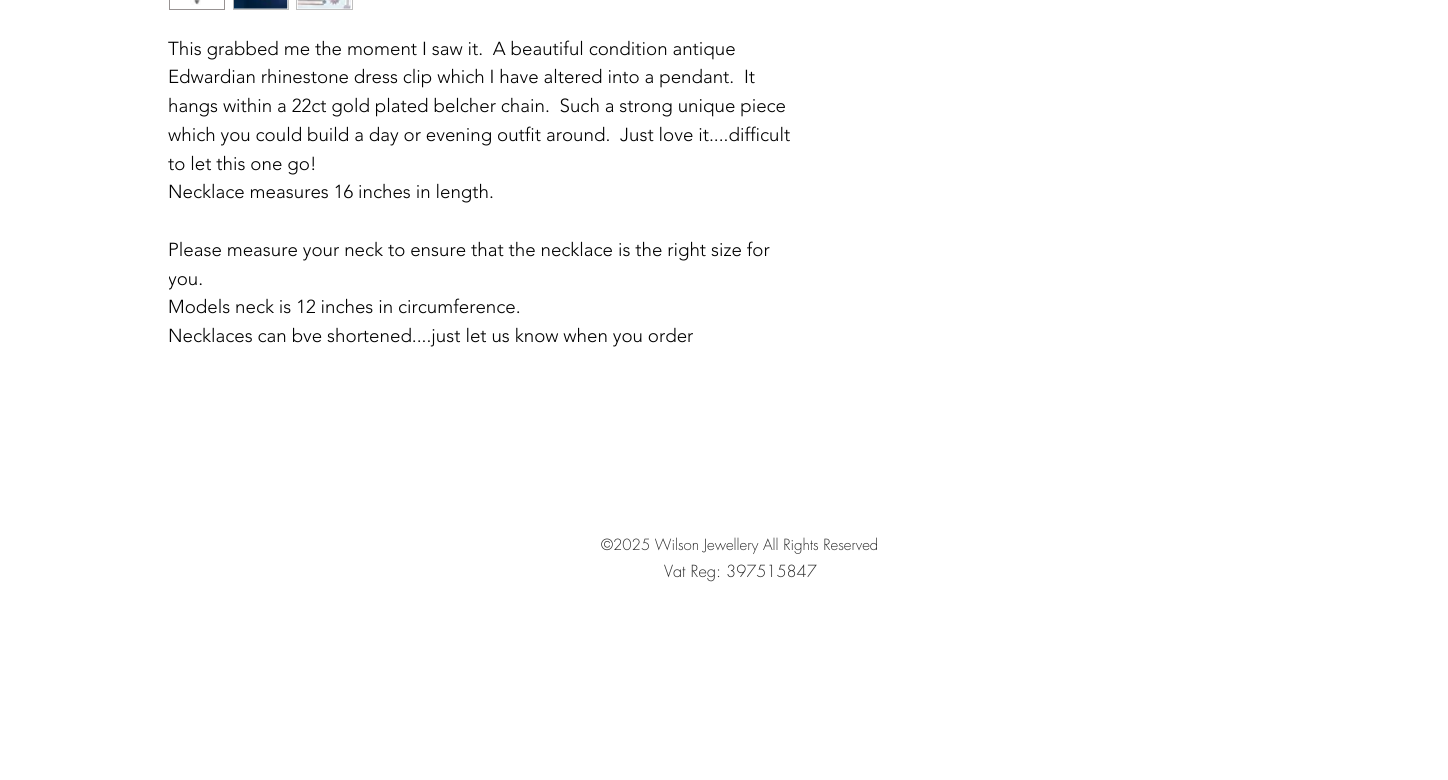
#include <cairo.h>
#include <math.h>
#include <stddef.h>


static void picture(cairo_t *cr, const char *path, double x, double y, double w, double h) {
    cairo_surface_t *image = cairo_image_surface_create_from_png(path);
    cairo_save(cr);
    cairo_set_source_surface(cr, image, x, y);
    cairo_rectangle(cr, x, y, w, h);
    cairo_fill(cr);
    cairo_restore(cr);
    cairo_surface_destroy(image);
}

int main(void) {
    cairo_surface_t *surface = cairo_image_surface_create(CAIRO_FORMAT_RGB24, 1448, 780);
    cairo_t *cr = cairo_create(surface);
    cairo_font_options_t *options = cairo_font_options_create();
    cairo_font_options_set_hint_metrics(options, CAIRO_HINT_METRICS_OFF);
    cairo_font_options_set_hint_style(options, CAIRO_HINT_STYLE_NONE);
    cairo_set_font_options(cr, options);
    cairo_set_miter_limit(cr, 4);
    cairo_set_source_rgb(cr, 1, 1, 1);
    cairo_paint(cr);
    cairo_rectangle(cr, 169.5, -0.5, 55, 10);
    cairo_set_source_rgb(cr, 0.592, 0.573, 0.573);
    cairo_set_line_width(cr, 1);
    cairo_stroke(cr);
    picture(cr, "img1.png", 190, 0, 11, 5);
    cairo_rectangle(cr, 233.5, -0.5, 55, 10);
    cairo_set_source_rgb(cr, 0.749, 0.749, 0.749);
    cairo_stroke(cr);
    picture(cr, "img2.png", 233, 0, 55, 9);
    cairo_rectangle(cr, 296.5, -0.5, 56, 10);
    cairo_stroke(cr);
    picture(cr, "img3.png", 297, 0, 54, 9);
    cairo_select_font_face(cr, "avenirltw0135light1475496 Light", CAIRO_FONT_SLANT_NORMAL, CAIRO_FONT_WEIGHT_NORMAL);
    cairo_set_font_size(cr, 18.75);
    cairo_set_source_rgb(cr, 0, 0, 0);
    cairo_move_to(cr, 168, 55);
    cairo_show_text(cr, "This grabbed me the moment I saw it.  A beautiful condition antique");
    cairo_move_to(cr, 168, 83);
    cairo_show_text(cr, "Edwardian rhinestone dress clip which I have altered into a pendant.  It");
    cairo_move_to(cr, 168, 112);
    cairo_show_text(cr, "hangs within a 22ct gold plated belcher chain.  Such a strong unique piece");
    cairo_move_to(cr, 168, 141);
    cairo_show_text(cr, "which you could build a day or evening outfit around.  Just love it....difficult");
    cairo_move_to(cr, 168, 170);
    cairo_show_text(cr, "to let this one go!");
    cairo_move_to(cr, 168, 198);
    cairo_show_text(cr, "Necklace measures 16 inches in length.");
    cairo_move_to(cr, 168, 256);
    cairo_show_text(cr, "Please measure your neck to ensure that the necklace is the right size for");
    cairo_save(cr);
    cairo_rectangle(cr, 169, 35, 625, 403);
    cairo_clip(cr);
    cairo_move_to(cr, 168, 285);
    cairo_show_text(cr, "you.");
    cairo_restore(cr);
    cairo_move_to(cr, 168, 313);
    cairo_show_text(cr, "Models neck is 12 inches in circumference.");
    cairo_move_to(cr, 168, 342);
    cairo_show_text(cr, "Necklaces can bve shortened....just let us know when you order");
    cairo_select_font_face(cr, "futura Light", CAIRO_FONT_SLANT_NORMAL, CAIRO_FONT_WEIGHT_NORMAL);
    cairo_set_font_size(cr, 15);
    cairo_set_source_rgb(cr, 0.161, 0.161, 0.161);
    cairo_move_to(cr, 601, 550);
    cairo_show_text(cr, "©2025 Wilson Jewellery All Rights Reserved");
    cairo_set_font_size(cr, 16.25);
    cairo_move_to(cr, 664, 577);
    cairo_show_text(cr, "Vat Reg: 397515847");
    cairo_surface_write_to_png(surface, "page.png");
    cairo_font_options_destroy(options);
    cairo_destroy(cr);
    cairo_surface_destroy(surface);
    return 0;
}
